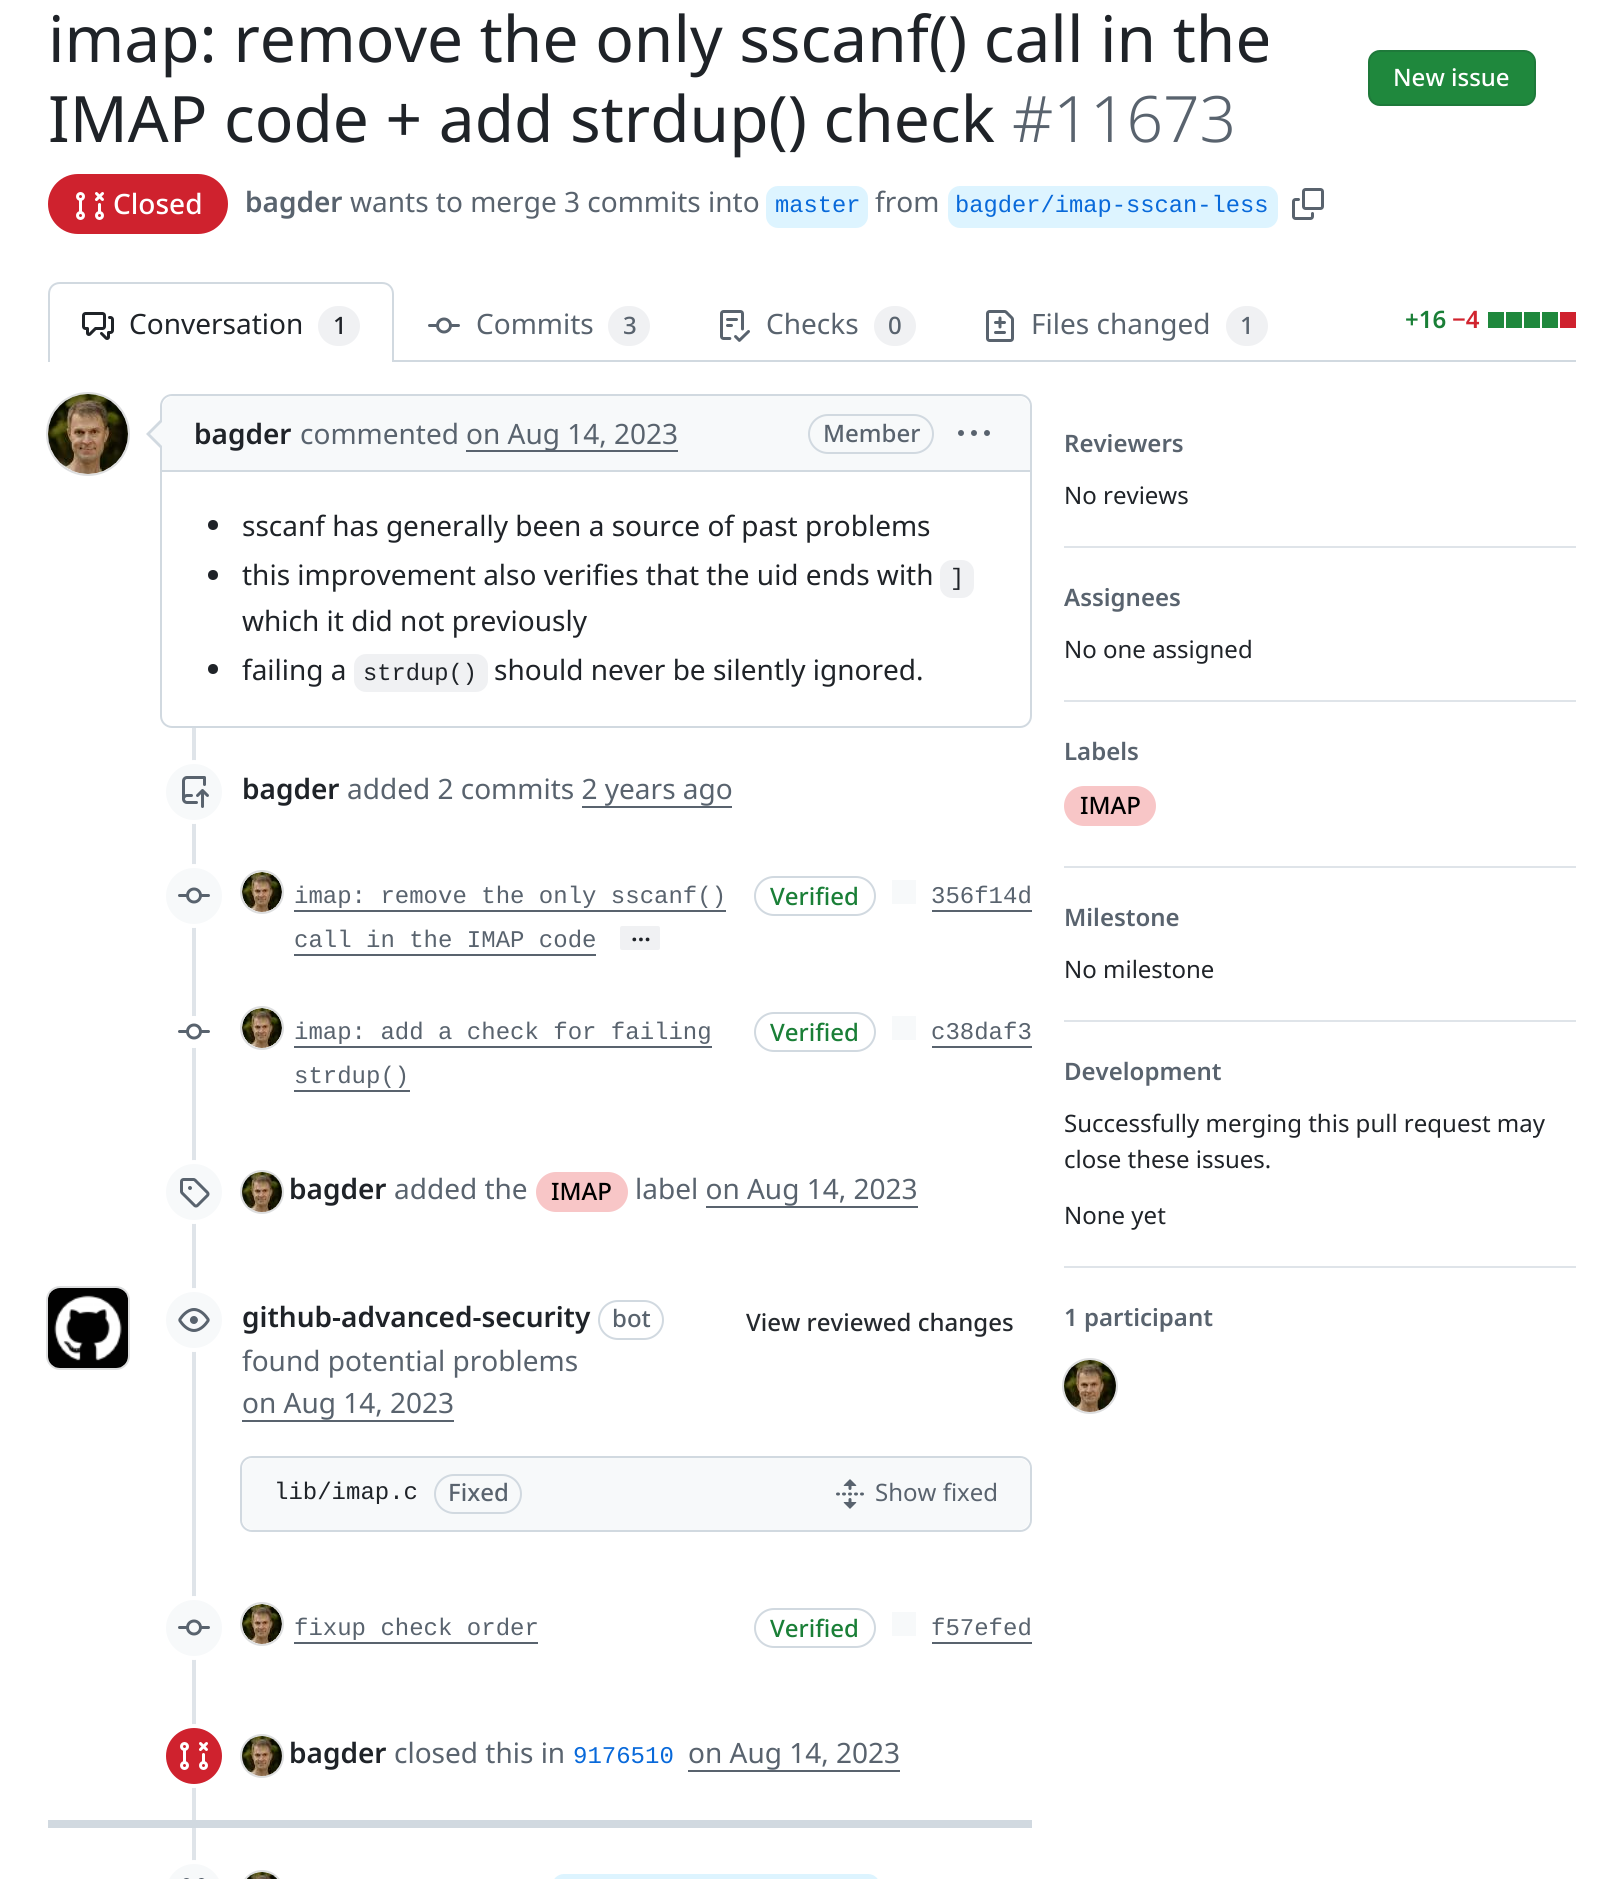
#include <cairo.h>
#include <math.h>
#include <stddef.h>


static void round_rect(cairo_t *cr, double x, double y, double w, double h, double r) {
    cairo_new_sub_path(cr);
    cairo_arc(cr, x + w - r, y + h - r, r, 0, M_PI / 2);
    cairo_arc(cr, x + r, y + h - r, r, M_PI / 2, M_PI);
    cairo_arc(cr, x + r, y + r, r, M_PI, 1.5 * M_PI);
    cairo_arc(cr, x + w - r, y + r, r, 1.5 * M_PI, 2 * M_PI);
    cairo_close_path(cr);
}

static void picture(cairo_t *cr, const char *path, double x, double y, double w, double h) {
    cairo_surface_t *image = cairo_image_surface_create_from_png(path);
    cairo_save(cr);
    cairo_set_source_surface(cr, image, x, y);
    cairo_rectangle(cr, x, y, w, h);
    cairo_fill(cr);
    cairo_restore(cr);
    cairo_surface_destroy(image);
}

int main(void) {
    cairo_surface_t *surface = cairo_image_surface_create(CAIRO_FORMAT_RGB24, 1623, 1879);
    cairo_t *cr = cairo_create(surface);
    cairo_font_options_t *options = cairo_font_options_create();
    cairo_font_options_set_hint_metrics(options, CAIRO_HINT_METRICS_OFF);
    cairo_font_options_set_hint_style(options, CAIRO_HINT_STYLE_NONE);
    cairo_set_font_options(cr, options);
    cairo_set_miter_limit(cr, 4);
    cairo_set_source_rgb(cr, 1, 1, 1);
    cairo_paint(cr);
    cairo_select_font_face(cr, "Noto Sans", CAIRO_FONT_SLANT_NORMAL, CAIRO_FONT_WEIGHT_NORMAL);
    cairo_set_font_size(cr, 64);
    cairo_set_source_rgb(cr, 0.122, 0.137, 0.157);
    cairo_move_to(cr, 48, 62);
    cairo_show_text(cr, "imap: remove the only sscanf() call in the");
    cairo_move_to(cr, 48, 142);
    cairo_show_text(cr, "IMAP code + add strdup() check");
    cairo_select_font_face(cr, "Noto Sans Light", CAIRO_FONT_SLANT_NORMAL, CAIRO_FONT_WEIGHT_NORMAL);
    cairo_set_source_rgb(cr, 0.349, 0.388, 0.431);
    cairo_move_to(cr, 1012, 142);
    cairo_show_text(cr, "#11673");
    cairo_set_source_rgb(cr, 0.122, 0.533, 0.239);
    round_rect(cr, 1368, 50, 168, 56, 12);
    cairo_fill(cr);
    round_rect(cr, 1369, 51, 166, 54, 11);
    cairo_set_source_rgba(cr, 0.122, 0.137, 0.157, 0.15);
    cairo_stroke(cr);
    cairo_select_font_face(cr, "Noto Sans Medium", CAIRO_FONT_SLANT_NORMAL, CAIRO_FONT_WEIGHT_NORMAL);
    cairo_set_font_size(cr, 24);
    cairo_set_source_rgb(cr, 1, 1, 1);
    cairo_move_to(cr, 1393, 86);
    cairo_show_text(cr, "New issue");
    cairo_set_source_rgb(cr, 0.812, 0.133, 0.18);
    round_rect(cr, 48, 174, 180, 60, 30);
    cairo_fill(cr);
    picture(cr, "img1.png", 76, 192, 28, 28);
    cairo_set_font_size(cr, 28);
    cairo_set_source_rgb(cr, 1, 1, 1);
    cairo_move_to(cr, 113, 214);
    cairo_show_text(cr, "Closed");
    cairo_select_font_face(cr, "Noto Sans SemiBold", CAIRO_FONT_SLANT_NORMAL, CAIRO_FONT_WEIGHT_NORMAL);
    cairo_set_source_rgb(cr, 0.349, 0.388, 0.431);
    cairo_move_to(cr, 245, 212);
    cairo_show_text(cr, "bagder");
    cairo_select_font_face(cr, "Noto Sans", CAIRO_FONT_SLANT_NORMAL, CAIRO_FONT_WEIGHT_NORMAL);
    cairo_move_to(cr, 350, 212);
    cairo_show_text(cr, "wants to merge 3 commits into");
    cairo_set_source_rgb(cr, 0.867, 0.957, 1);
    round_rect(cr, 766, 186, 102, 42, 12);
    cairo_fill(cr);
    cairo_select_font_face(cr, "Liberation Mono", CAIRO_FONT_SLANT_NORMAL, CAIRO_FONT_WEIGHT_NORMAL);
    cairo_set_font_size(cr, 23.75);
    cairo_set_source_rgb(cr, 0.035, 0.412, 0.855);
    cairo_move_to(cr, 775, 212);
    cairo_show_text(cr, "master");
    cairo_select_font_face(cr, "Noto Sans", CAIRO_FONT_SLANT_NORMAL, CAIRO_FONT_WEIGHT_NORMAL);
    cairo_set_font_size(cr, 28);
    cairo_set_source_rgb(cr, 0.349, 0.388, 0.431);
    cairo_move_to(cr, 875, 212);
    cairo_show_text(cr, "from");
    cairo_set_source_rgb(cr, 0.867, 0.957, 1);
    round_rect(cr, 948, 186, 330, 42, 12);
    cairo_fill(cr);
    cairo_select_font_face(cr, "Liberation Mono", CAIRO_FONT_SLANT_NORMAL, CAIRO_FONT_WEIGHT_NORMAL);
    cairo_set_font_size(cr, 23.75);
    cairo_set_source_rgb(cr, 0.035, 0.412, 0.855);
    cairo_move_to(cr, 955, 212);
    cairo_show_text(cr, "bagder/imap-sscan-less");
    picture(cr, "img2.png", 1292, 188, 32, 32);
    cairo_set_source_rgb(cr, 0.82, 0.851, 0.878);
    cairo_rectangle(cr, 394, 360, 1182, 2);
    cairo_fill(cr);
    cairo_set_fill_rule(cr, CAIRO_FILL_RULE_EVEN_ODD);
    cairo_new_path(cr);
    cairo_move_to(cr, 60, 282);
    cairo_line_to(cr, 382, 282);
    cairo_curve_to(cr, 389, 282, 394, 287, 394, 294);
    cairo_line_to(cr, 394, 362);
    cairo_line_to(cr, 48, 362);
    cairo_line_to(cr, 48, 294);
    cairo_curve_to(cr, 48, 287, 53, 282, 60, 282);
    cairo_close_path(cr);
    cairo_move_to(cr, 60, 284);
    cairo_line_to(cr, 382, 284);
    cairo_curve_to(cr, 388, 284, 392, 288, 392, 294);
    cairo_line_to(cr, 392, 362);
    cairo_line_to(cr, 50, 362);
    cairo_line_to(cr, 50, 294);
    cairo_curve_to(cr, 50, 288, 54, 284, 60, 284);
    cairo_close_path(cr);
    cairo_fill(cr);
    picture(cr, "img3.png", 82, 312, 32, 28);
    cairo_select_font_face(cr, "Noto Sans", CAIRO_FONT_SLANT_NORMAL, CAIRO_FONT_WEIGHT_NORMAL);
    cairo_set_font_size(cr, 28);
    cairo_set_source_rgb(cr, 0.122, 0.137, 0.157);
    cairo_move_to(cr, 129, 334);
    cairo_show_text(cr, "Conversation");
    cairo_set_source_rgb(cr, 0.941, 0.945, 0.953);
    round_rect(cr, 318, 306, 42, 40, 20);
    cairo_fill(cr);
    cairo_select_font_face(cr, "Noto Sans Medium", CAIRO_FONT_SLANT_NORMAL, CAIRO_FONT_WEIGHT_NORMAL);
    cairo_set_font_size(cr, 24);
    cairo_set_source_rgb(cr, 0.122, 0.137, 0.157);
    cairo_move_to(cr, 333, 334);
    cairo_show_text(cr, "1");
    picture(cr, "img4.png", 428, 317, 32, 17);
    cairo_select_font_face(cr, "Noto Sans", CAIRO_FONT_SLANT_NORMAL, CAIRO_FONT_WEIGHT_NORMAL);
    cairo_set_font_size(cr, 28);
    cairo_set_source_rgb(cr, 0.349, 0.388, 0.431);
    cairo_move_to(cr, 476, 334);
    cairo_show_text(cr, "Commits");
    cairo_set_source_rgb(cr, 0.941, 0.945, 0.953);
    round_rect(cr, 608, 306, 42, 40, 20);
    cairo_fill(cr);
    cairo_select_font_face(cr, "Noto Sans Medium", CAIRO_FONT_SLANT_NORMAL, CAIRO_FONT_WEIGHT_NORMAL);
    cairo_set_font_size(cr, 24);
    cairo_set_source_rgb(cr, 0.349, 0.388, 0.431);
    cairo_move_to(cr, 623, 334);
    cairo_show_text(cr, "3");
    picture(cr, "img5.png", 720, 310, 30, 32);
    cairo_select_font_face(cr, "Noto Sans", CAIRO_FONT_SLANT_NORMAL, CAIRO_FONT_WEIGHT_NORMAL);
    cairo_set_font_size(cr, 28);
    cairo_move_to(cr, 766, 334);
    cairo_show_text(cr, "Checks");
    cairo_set_source_rgb(cr, 0.941, 0.945, 0.953);
    round_rect(cr, 874, 306, 42, 40, 20);
    cairo_fill(cr);
    cairo_select_font_face(cr, "Noto Sans Medium", CAIRO_FONT_SLANT_NORMAL, CAIRO_FONT_WEIGHT_NORMAL);
    cairo_set_font_size(cr, 24);
    cairo_set_source_rgb(cr, 0.349, 0.388, 0.431);
    cairo_move_to(cr, 888, 334);
    cairo_show_text(cr, "0");
    picture(cr, "img6.png", 986, 310, 28, 32);
    cairo_select_font_face(cr, "Noto Sans", CAIRO_FONT_SLANT_NORMAL, CAIRO_FONT_WEIGHT_NORMAL);
    cairo_set_font_size(cr, 28);
    cairo_move_to(cr, 1031, 334);
    cairo_show_text(cr, "Files changed");
    cairo_set_source_rgb(cr, 0.941, 0.945, 0.953);
    round_rect(cr, 1226, 306, 42, 40, 20);
    cairo_fill(cr);
    cairo_select_font_face(cr, "Noto Sans Medium", CAIRO_FONT_SLANT_NORMAL, CAIRO_FONT_WEIGHT_NORMAL);
    cairo_set_font_size(cr, 24);
    cairo_set_source_rgb(cr, 0.349, 0.388, 0.431);
    cairo_move_to(cr, 1240, 334);
    cairo_show_text(cr, "1");
    cairo_select_font_face(cr, "Noto Sans SemiBold", CAIRO_FONT_SLANT_NORMAL, CAIRO_FONT_WEIGHT_NORMAL);
    cairo_set_source_rgb(cr, 0.102, 0.498, 0.216);
    cairo_move_to(cr, 1405, 328);
    cairo_show_text(cr, "+16");
    cairo_set_source_rgb(cr, 0.82, 0.141, 0.184);
    cairo_move_to(cr, 1452, 328);
    cairo_show_text(cr, "−4");
    cairo_set_source_rgb(cr, 0.122, 0.533, 0.239);
    cairo_rectangle(cr, 1488, 312, 16, 16);
    cairo_fill(cr);
    cairo_rectangle(cr, 1506, 312, 16, 16);
    cairo_fill(cr);
    cairo_rectangle(cr, 1524, 312, 16, 16);
    cairo_fill(cr);
    cairo_rectangle(cr, 1542, 312, 16, 16);
    cairo_fill(cr);
    cairo_set_source_rgb(cr, 0.812, 0.133, 0.18);
    cairo_rectangle(cr, 1560, 312, 16, 16);
    cairo_fill(cr);
    cairo_arc(cr, 88, 434, 41, 0, 2 * M_PI);
    cairo_set_source_rgb(cr, 0.867, 0.871, 0.875);
    cairo_stroke(cr);
    cairo_set_source_rgb(cr, 1, 1, 1);
    cairo_arc(cr, 88, 434, 40, 0, 2 * M_PI);
    cairo_fill(cr);
    picture(cr, "img7.png", 48, 394, 80, 80);
    round_rect(cr, 161, 395, 870, 332, 11);
    cairo_set_source_rgb(cr, 0.82, 0.851, 0.878);
    cairo_stroke(cr);
    cairo_set_fill_rule(cr, CAIRO_FILL_RULE_WINDING);
    cairo_new_path(cr);
    cairo_move_to(cr, 146, 434);
    cairo_line_to(cr, 162, 450);
    cairo_line_to(cr, 162, 418);
    cairo_close_path(cr);
    cairo_fill(cr);
    cairo_set_source_rgb(cr, 0.965, 0.973, 0.98);
    cairo_new_path(cr);
    cairo_move_to(cr, 174, 396);
    cairo_line_to(cr, 1018, 396);
    cairo_curve_to(cr, 1024.5, 396, 1030, 401.5, 1030, 408);
    cairo_line_to(cr, 1030, 472);
    cairo_line_to(cr, 162, 472);
    cairo_line_to(cr, 162, 408);
    cairo_curve_to(cr, 162, 401.5, 167.5, 396, 174, 396);
    cairo_close_path(cr);
    cairo_fill(cr);
    cairo_new_path(cr);
    cairo_move_to(cr, 150, 434);
    cairo_line_to(cr, 166, 450);
    cairo_line_to(cr, 166, 418);
    cairo_close_path(cr);
    cairo_fill(cr);
    cairo_set_source_rgb(cr, 0.82, 0.851, 0.878);
    cairo_rectangle(cr, 162, 470, 868, 2);
    cairo_fill(cr);
    cairo_set_font_size(cr, 28);
    cairo_set_source_rgb(cr, 0.122, 0.137, 0.157);
    cairo_move_to(cr, 194, 444);
    cairo_show_text(cr, "bagder");
    cairo_select_font_face(cr, "Noto Sans", CAIRO_FONT_SLANT_NORMAL, CAIRO_FONT_WEIGHT_NORMAL);
    cairo_set_source_rgb(cr, 0.349, 0.388, 0.431);
    cairo_move_to(cr, 300, 444);
    cairo_show_text(cr, "commented");
    cairo_rectangle(cr, 466, 450, 212, 2);
    cairo_fill(cr);
    cairo_move_to(cr, 466, 444);
    cairo_show_text(cr, "on Aug 14, 2023");
    round_rect(cr, 809, 415, 124, 38, 19);
    cairo_set_source_rgb(cr, 0.82, 0.851, 0.878);
    cairo_stroke(cr);
    cairo_select_font_face(cr, "Noto Sans Medium", CAIRO_FONT_SLANT_NORMAL, CAIRO_FONT_WEIGHT_NORMAL);
    cairo_set_font_size(cr, 24);
    cairo_set_source_rgb(cr, 0.349, 0.388, 0.431);
    cairo_move_to(cr, 823, 442);
    cairo_show_text(cr, "Member");
    picture(cr, "img8.png", 958, 430, 32, 6);
    cairo_set_source_rgb(cr, 0.122, 0.137, 0.157);
    cairo_arc(cr, 213, 525, 5, 0, 2 * M_PI);
    cairo_fill(cr);
    cairo_select_font_face(cr, "Noto Sans", CAIRO_FONT_SLANT_NORMAL, CAIRO_FONT_WEIGHT_NORMAL);
    cairo_set_font_size(cr, 28);
    cairo_move_to(cr, 242, 536);
    cairo_show_text(cr, "sscanf has generally been a source of past problems");
    cairo_new_path(cr);
    cairo_arc(cr, 213, 575, 5, 0, 2 * M_PI);
    cairo_fill(cr);
    cairo_move_to(cr, 242, 585);
    cairo_show_text(cr, "this improvement also verifies that the uid ends with");
    cairo_set_source_rgb(cr, 0.941, 0.945, 0.953);
    round_rect(cr, 940, 560, 34, 38, 12);
    cairo_fill(cr);
    cairo_select_font_face(cr, "Liberation Mono", CAIRO_FONT_SLANT_NORMAL, CAIRO_FONT_WEIGHT_NORMAL);
    cairo_set_font_size(cr, 23.75);
    cairo_set_source_rgb(cr, 0.122, 0.137, 0.157);
    cairo_move_to(cr, 950, 585);
    cairo_show_text(cr, "]");
    cairo_select_font_face(cr, "Noto Sans", CAIRO_FONT_SLANT_NORMAL, CAIRO_FONT_WEIGHT_NORMAL);
    cairo_set_font_size(cr, 28);
    cairo_move_to(cr, 242, 631);
    cairo_show_text(cr, "which it did not previously");
    cairo_new_path(cr);
    cairo_arc(cr, 213, 669, 5, 0, 2 * M_PI);
    cairo_fill(cr);
    cairo_move_to(cr, 242, 680);
    cairo_show_text(cr, "failing a");
    cairo_set_source_rgb(cr, 0.941, 0.945, 0.953);
    round_rect(cr, 354, 654, 134, 38, 12);
    cairo_fill(cr);
    cairo_select_font_face(cr, "Liberation Mono", CAIRO_FONT_SLANT_NORMAL, CAIRO_FONT_WEIGHT_NORMAL);
    cairo_set_font_size(cr, 23.75);
    cairo_set_source_rgb(cr, 0.122, 0.137, 0.157);
    cairo_move_to(cr, 363, 680);
    cairo_show_text(cr, "strdup()");
    cairo_select_font_face(cr, "Noto Sans", CAIRO_FONT_SLANT_NORMAL, CAIRO_FONT_WEIGHT_NORMAL);
    cairo_set_font_size(cr, 28);
    cairo_move_to(cr, 494, 680);
    cairo_show_text(cr, "should never be silently ignored.");
    cairo_set_source_rgb(cr, 0.875, 0.894, 0.914);
    cairo_rectangle(cr, 192, 728, 4, 1092);
    cairo_fill(cr);
    cairo_set_source_rgb(cr, 0.965, 0.973, 0.98);
    cairo_arc(cr, 194, 792, 30, 0, 2 * M_PI);
    cairo_fill_preserve(cr);
    cairo_set_source_rgb(cr, 1, 1, 1);
    cairo_set_line_width(cr, 4);
    cairo_stroke(cr);
    picture(cr, "img9.png", 182, 776, 27, 32);
    cairo_select_font_face(cr, "Noto Sans SemiBold", CAIRO_FONT_SLANT_NORMAL, CAIRO_FONT_WEIGHT_NORMAL);
    cairo_set_source_rgb(cr, 0.122, 0.137, 0.157);
    cairo_move_to(cr, 242, 799);
    cairo_show_text(cr, "bagder");
    cairo_select_font_face(cr, "Noto Sans", CAIRO_FONT_SLANT_NORMAL, CAIRO_FONT_WEIGHT_NORMAL);
    cairo_set_source_rgb(cr, 0.349, 0.388, 0.431);
    cairo_move_to(cr, 347, 799);
    cairo_show_text(cr, "added 2 commits 2 years ago");
    cairo_rectangle(cr, 582, 806, 150, 2);
    cairo_fill(cr);
    cairo_set_source_rgb(cr, 0.965, 0.973, 0.98);
    cairo_arc(cr, 194, 896, 30, 0, 2 * M_PI);
    cairo_fill_preserve(cr);
    cairo_set_source_rgb(cr, 1, 1, 1);
    cairo_stroke(cr);
    picture(cr, "img10.png", 178, 887, 32, 17);
    cairo_arc(cr, 262, 892, 21, 0, 2 * M_PI);
    cairo_set_source_rgb(cr, 0.867, 0.871, 0.875);
    cairo_set_line_width(cr, 2);
    cairo_stroke(cr);
    cairo_set_source_rgb(cr, 1, 1, 1);
    cairo_arc(cr, 262, 892, 20, 0, 2 * M_PI);
    cairo_fill(cr);
    picture(cr, "img11.png", 242, 872, 40, 40);
    cairo_select_font_face(cr, "Liberation Mono", CAIRO_FONT_SLANT_NORMAL, CAIRO_FONT_WEIGHT_NORMAL);
    cairo_set_font_size(cr, 24);
    cairo_set_source_rgb(cr, 0.349, 0.388, 0.431);
    cairo_move_to(cr, 294, 903);
    cairo_show_text(cr, "imap: remove the only sscanf()");
    cairo_rectangle(cr, 294, 910, 432, 2);
    cairo_fill(cr);
    cairo_move_to(cr, 294, 947);
    cairo_show_text(cr, "call in the IMAP code");
    cairo_rectangle(cr, 294, 954, 302, 2);
    cairo_fill(cr);
    cairo_set_source_rgb(cr, 0.941, 0.945, 0.953);
    round_rect(cr, 620, 926, 40, 24, 2);
    cairo_fill(cr);
    cairo_select_font_face(cr, "Noto Sans SemiBold", CAIRO_FONT_SLANT_NORMAL, CAIRO_FONT_WEIGHT_NORMAL);
    cairo_set_source_rgb(cr, 0.122, 0.137, 0.157);
    cairo_move_to(cr, 631, 941);
    cairo_show_text(cr, "…");
    round_rect(cr, 755, 877, 120, 38, 19);
    cairo_set_source_rgb(cr, 0.82, 0.851, 0.878);
    cairo_stroke(cr);
    cairo_select_font_face(cr, "Noto Sans Medium", CAIRO_FONT_SLANT_NORMAL, CAIRO_FONT_WEIGHT_NORMAL);
    cairo_set_source_rgb(cr, 0.102, 0.498, 0.216);
    cairo_move_to(cr, 770, 905);
    cairo_show_text(cr, "Verified");
    cairo_set_source_rgb(cr, 0.965, 0.973, 0.98);
    cairo_rectangle(cr, 892, 880, 24, 24);
    cairo_fill(cr);
    cairo_select_font_face(cr, "Liberation Mono", CAIRO_FONT_SLANT_NORMAL, CAIRO_FONT_WEIGHT_NORMAL);
    cairo_set_source_rgb(cr, 0.349, 0.388, 0.431);
    cairo_move_to(cr, 931, 903);
    cairo_show_text(cr, "356f14d");
    cairo_rectangle(cr, 932, 910, 100, 2);
    cairo_fill(cr);
    cairo_set_source_rgb(cr, 1, 1, 1);
    cairo_new_path(cr);
    cairo_move_to(cr, 194, 1016);
    cairo_curve_to(cr, 211.5, 1016, 226, 1023, 226, 1032);
    cairo_curve_to(cr, 226, 1041, 211.5, 1048, 194, 1048);
    cairo_curve_to(cr, 176.5, 1048, 162, 1041, 162, 1032);
    cairo_curve_to(cr, 162, 1023, 176.5, 1016, 194, 1016);
    cairo_close_path(cr);
    cairo_fill(cr);
    picture(cr, "img4.png", 178, 1023, 32, 17);
    cairo_arc(cr, 262, 1028, 21, 0, 2 * M_PI);
    cairo_set_source_rgb(cr, 0.867, 0.871, 0.875);
    cairo_stroke(cr);
    cairo_set_source_rgb(cr, 1, 1, 1);
    cairo_arc(cr, 262, 1028, 20, 0, 2 * M_PI);
    cairo_fill(cr);
    picture(cr, "img11.png", 242, 1008, 40, 40);
    cairo_set_source_rgb(cr, 0.349, 0.388, 0.431);
    cairo_move_to(cr, 294, 1039);
    cairo_show_text(cr, "imap: add a check for failing");
    cairo_rectangle(cr, 294, 1046, 418, 2);
    cairo_fill(cr);
    cairo_move_to(cr, 294, 1083);
    cairo_show_text(cr, "strdup()");
    cairo_rectangle(cr, 294, 1090, 116, 2);
    cairo_fill(cr);
    round_rect(cr, 755, 1013, 120, 38, 19);
    cairo_set_source_rgb(cr, 0.82, 0.851, 0.878);
    cairo_stroke(cr);
    cairo_select_font_face(cr, "Noto Sans Medium", CAIRO_FONT_SLANT_NORMAL, CAIRO_FONT_WEIGHT_NORMAL);
    cairo_set_source_rgb(cr, 0.102, 0.498, 0.216);
    cairo_move_to(cr, 770, 1041);
    cairo_show_text(cr, "Verified");
    cairo_set_source_rgb(cr, 0.965, 0.973, 0.98);
    cairo_rectangle(cr, 892, 1016, 24, 24);
    cairo_fill(cr);
    cairo_select_font_face(cr, "Liberation Mono", CAIRO_FONT_SLANT_NORMAL, CAIRO_FONT_WEIGHT_NORMAL);
    cairo_set_source_rgb(cr, 0.349, 0.388, 0.431);
    cairo_move_to(cr, 931, 1039);
    cairo_show_text(cr, "c38daf3");
    cairo_rectangle(cr, 932, 1046, 100, 2);
    cairo_fill(cr);
    cairo_set_source_rgb(cr, 0.965, 0.973, 0.98);
    cairo_arc(cr, 194, 1192, 30, 0, 2 * M_PI);
    cairo_fill_preserve(cr);
    cairo_set_source_rgb(cr, 1, 1, 1);
    cairo_set_line_width(cr, 4);
    cairo_stroke(cr);
    picture(cr, "img12.png", 180, 1178, 30, 30);
    cairo_arc(cr, 262, 1192, 21, 0, 2 * M_PI);
    cairo_set_source_rgb(cr, 0.867, 0.871, 0.875);
    cairo_set_line_width(cr, 2);
    cairo_stroke(cr);
    cairo_set_source_rgb(cr, 1, 1, 1);
    cairo_arc(cr, 262, 1192, 20, 0, 2 * M_PI);
    cairo_fill(cr);
    picture(cr, "img13.png", 242, 1172, 40, 40);
    cairo_select_font_face(cr, "Noto Sans SemiBold", CAIRO_FONT_SLANT_NORMAL, CAIRO_FONT_WEIGHT_NORMAL);
    cairo_set_font_size(cr, 28);
    cairo_set_source_rgb(cr, 0.122, 0.137, 0.157);
    cairo_move_to(cr, 289, 1199);
    cairo_show_text(cr, "bagder");
    cairo_select_font_face(cr, "Noto Sans", CAIRO_FONT_SLANT_NORMAL, CAIRO_FONT_WEIGHT_NORMAL);
    cairo_set_source_rgb(cr, 0.349, 0.388, 0.431);
    cairo_move_to(cr, 394, 1199);
    cairo_show_text(cr, "added the");
    cairo_set_source_rgb(cr, 0.969, 0.776, 0.78);
    round_rect(cr, 536, 1172, 92, 40, 20);
    cairo_fill(cr);
    cairo_select_font_face(cr, "Noto Sans Medium", CAIRO_FONT_SLANT_NORMAL, CAIRO_FONT_WEIGHT_NORMAL);
    cairo_set_font_size(cr, 24);
    cairo_set_source_rgb(cr, 0, 0, 0);
    cairo_move_to(cr, 551, 1200);
    cairo_show_text(cr, "IMAP");
    cairo_select_font_face(cr, "Noto Sans", CAIRO_FONT_SLANT_NORMAL, CAIRO_FONT_WEIGHT_NORMAL);
    cairo_set_font_size(cr, 28);
    cairo_set_source_rgb(cr, 0.349, 0.388, 0.431);
    cairo_move_to(cr, 635, 1199);
    cairo_show_text(cr, "label on Aug 14, 2023");
    cairo_rectangle(cr, 706, 1206, 212, 2);
    cairo_fill(cr);
    round_rect(cr, 47, 1287, 82, 82, 13);
    cairo_set_source_rgb(cr, 0.867, 0.871, 0.875);
    cairo_stroke(cr);
    picture(cr, "img14.png", 48, 1288, 80, 80);
    cairo_set_source_rgb(cr, 0.965, 0.973, 0.98);
    cairo_arc(cr, 194, 1320, 30, 0, 2 * M_PI);
    cairo_fill_preserve(cr);
    cairo_set_source_rgb(cr, 1, 1, 1);
    cairo_set_line_width(cr, 4);
    cairo_stroke(cr);
    picture(cr, "img15.png", 178, 1308, 32, 24);
    cairo_select_font_face(cr, "Noto Sans SemiBold", CAIRO_FONT_SLANT_NORMAL, CAIRO_FONT_WEIGHT_NORMAL);
    cairo_set_source_rgb(cr, 0.122, 0.137, 0.157);
    cairo_move_to(cr, 242, 1327);
    cairo_show_text(cr, "github-advanced-security");
    round_rect(cr, 599, 1301, 64, 38, 19);
    cairo_set_source_rgb(cr, 0.82, 0.851, 0.878);
    cairo_set_line_width(cr, 2);
    cairo_stroke(cr);
    cairo_select_font_face(cr, "Noto Sans Medium", CAIRO_FONT_SLANT_NORMAL, CAIRO_FONT_WEIGHT_NORMAL);
    cairo_set_font_size(cr, 24);
    cairo_set_source_rgb(cr, 0.349, 0.388, 0.431);
    cairo_move_to(cr, 612, 1327);
    cairo_show_text(cr, "bot");
    cairo_select_font_face(cr, "Noto Sans", CAIRO_FONT_SLANT_NORMAL, CAIRO_FONT_WEIGHT_NORMAL);
    cairo_set_font_size(cr, 28);
    cairo_move_to(cr, 242, 1371);
    cairo_show_text(cr, "found potential problems");
    cairo_move_to(cr, 242, 1413);
    cairo_show_text(cr, "on Aug 14, 2023");
    cairo_rectangle(cr, 242, 1420, 212, 2);
    cairo_fill(cr);
    cairo_select_font_face(cr, "Noto Sans Medium", CAIRO_FONT_SLANT_NORMAL, CAIRO_FONT_WEIGHT_NORMAL);
    cairo_set_font_size(cr, 24);
    cairo_set_source_rgb(cr, 0.145, 0.161, 0.18);
    cairo_move_to(cr, 746, 1331);
    cairo_show_text(cr, "View reviewed changes");
    round_rect(cr, 241, 1457, 790, 74, 11);
    cairo_set_source_rgb(cr, 0.82, 0.851, 0.878);
    cairo_stroke(cr);
    cairo_set_source_rgb(cr, 0.965, 0.973, 0.98);
    round_rect(cr, 242, 1458, 788, 72, 12);
    cairo_fill(cr);
    cairo_select_font_face(cr, "Liberation Mono", CAIRO_FONT_SLANT_NORMAL, CAIRO_FONT_WEIGHT_NORMAL);
    cairo_set_source_rgb(cr, 0.122, 0.137, 0.157);
    cairo_move_to(cr, 274, 1499);
    cairo_show_text(cr, "lib/imap.c");
    round_rect(cr, 435, 1475, 86, 38, 19);
    cairo_set_source_rgb(cr, 0.82, 0.851, 0.878);
    cairo_stroke(cr);
    cairo_select_font_face(cr, "Noto Sans Medium", CAIRO_FONT_SLANT_NORMAL, CAIRO_FONT_WEIGHT_NORMAL);
    cairo_set_source_rgb(cr, 0.349, 0.388, 0.431);
    cairo_move_to(cr, 448, 1501);
    cairo_show_text(cr, "Fixed");
    picture(cr, "img16.png", 836, 1479, 28, 30);
    cairo_select_font_face(cr, "Noto Sans", CAIRO_FONT_SLANT_NORMAL, CAIRO_FONT_WEIGHT_NORMAL);
    cairo_move_to(cr, 875, 1501);
    cairo_show_text(cr, "Show fixed");
    cairo_set_source_rgb(cr, 0.965, 0.973, 0.98);
    cairo_new_path(cr);
    cairo_arc(cr, 194, 1628, 30, 0, 2 * M_PI);
    cairo_fill_preserve(cr);
    cairo_set_source_rgb(cr, 1, 1, 1);
    cairo_set_line_width(cr, 4);
    cairo_stroke(cr);
    picture(cr, "img10.png", 178, 1619, 32, 17);
    cairo_arc(cr, 262, 1624, 21, 0, 2 * M_PI);
    cairo_set_source_rgb(cr, 0.867, 0.871, 0.875);
    cairo_set_line_width(cr, 2);
    cairo_stroke(cr);
    cairo_set_source_rgb(cr, 1, 1, 1);
    cairo_arc(cr, 262, 1624, 20, 0, 2 * M_PI);
    cairo_fill(cr);
    picture(cr, "img17.png", 242, 1604, 40, 40);
    cairo_select_font_face(cr, "Liberation Mono", CAIRO_FONT_SLANT_NORMAL, CAIRO_FONT_WEIGHT_NORMAL);
    cairo_set_source_rgb(cr, 0.349, 0.388, 0.431);
    cairo_move_to(cr, 294, 1635);
    cairo_show_text(cr, "fixup check order");
    cairo_rectangle(cr, 294, 1642, 244, 2);
    cairo_fill(cr);
    round_rect(cr, 755, 1609, 120, 38, 19);
    cairo_set_source_rgb(cr, 0.82, 0.851, 0.878);
    cairo_stroke(cr);
    cairo_select_font_face(cr, "Noto Sans Medium", CAIRO_FONT_SLANT_NORMAL, CAIRO_FONT_WEIGHT_NORMAL);
    cairo_set_source_rgb(cr, 0.102, 0.498, 0.216);
    cairo_move_to(cr, 770, 1637);
    cairo_show_text(cr, "Verified");
    cairo_set_source_rgb(cr, 0.965, 0.973, 0.98);
    cairo_rectangle(cr, 892, 1612, 24, 24);
    cairo_fill(cr);
    cairo_select_font_face(cr, "Liberation Mono", CAIRO_FONT_SLANT_NORMAL, CAIRO_FONT_WEIGHT_NORMAL);
    cairo_set_source_rgb(cr, 0.349, 0.388, 0.431);
    cairo_move_to(cr, 931, 1635);
    cairo_show_text(cr, "f57efed");
    cairo_rectangle(cr, 932, 1642, 100, 2);
    cairo_fill(cr);
    cairo_set_source_rgb(cr, 0.812, 0.133, 0.18);
    cairo_arc(cr, 194, 1756, 30, 0, 2 * M_PI);
    cairo_fill_preserve(cr);
    cairo_set_source_rgb(cr, 1, 1, 1);
    cairo_set_line_width(cr, 4);
    cairo_stroke(cr);
    picture(cr, "img1.png", 180, 1742, 28, 28);
    cairo_arc(cr, 262, 1756, 21, 0, 2 * M_PI);
    cairo_set_source_rgb(cr, 0.867, 0.871, 0.875);
    cairo_set_line_width(cr, 2);
    cairo_stroke(cr);
    cairo_set_source_rgb(cr, 1, 1, 1);
    cairo_arc(cr, 262, 1756, 20, 0, 2 * M_PI);
    cairo_fill(cr);
    picture(cr, "img13.png", 242, 1736, 40, 40);
    cairo_select_font_face(cr, "Noto Sans SemiBold", CAIRO_FONT_SLANT_NORMAL, CAIRO_FONT_WEIGHT_NORMAL);
    cairo_set_font_size(cr, 28);
    cairo_set_source_rgb(cr, 0.122, 0.137, 0.157);
    cairo_move_to(cr, 289, 1763);
    cairo_show_text(cr, "bagder");
    cairo_select_font_face(cr, "Noto Sans", CAIRO_FONT_SLANT_NORMAL, CAIRO_FONT_WEIGHT_NORMAL);
    cairo_set_source_rgb(cr, 0.349, 0.388, 0.431);
    cairo_move_to(cr, 394, 1763);
    cairo_show_text(cr, "closed this in");
    cairo_select_font_face(cr, "Liberation Mono", CAIRO_FONT_SLANT_NORMAL, CAIRO_FONT_WEIGHT_NORMAL);
    cairo_set_font_size(cr, 24);
    cairo_set_source_rgb(cr, 0.035, 0.412, 0.855);
    cairo_move_to(cr, 573, 1763);
    cairo_show_text(cr, "9176510");
    cairo_select_font_face(cr, "Noto Sans", CAIRO_FONT_SLANT_NORMAL, CAIRO_FONT_WEIGHT_NORMAL);
    cairo_set_font_size(cr, 28);
    cairo_set_source_rgb(cr, 0.349, 0.388, 0.431);
    cairo_move_to(cr, 688, 1763);
    cairo_show_text(cr, "on Aug 14, 2023");
    cairo_rectangle(cr, 688, 1770, 212, 2);
    cairo_fill(cr);
    cairo_set_source_rgb(cr, 0.82, 0.851, 0.878);
    cairo_rectangle(cr, 48, 1820, 984, 8);
    cairo_fill(cr);
    cairo_set_source_rgb(cr, 0.875, 0.894, 0.914);
    cairo_rectangle(cr, 192, 1828, 4, 33);
    cairo_fill(cr);
    cairo_set_source_rgb(cr, 0.965, 0.973, 0.98);
    round_rect(cr, 164, 1862, 60, 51, 30);
    cairo_fill_preserve(cr);
    cairo_set_source_rgb(cr, 1, 1, 1);
    cairo_set_line_width(cr, 4);
    cairo_stroke(cr);
    picture(cr, "img18.png", 183, 1878, 22, 1);
    round_rect(cr, 241, 1871, 42, 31, 21);
    cairo_set_source_rgb(cr, 0.867, 0.871, 0.875);
    cairo_set_line_width(cr, 2);
    cairo_stroke(cr);
    cairo_set_source_rgb(cr, 1, 1, 1);
    round_rect(cr, 242, 1872, 40, 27, 20);
    cairo_fill(cr);
    picture(cr, "img19.png", 247, 1872, 30, 7);
    cairo_set_source_rgb(cr, 0.867, 0.957, 1);
    round_rect(cr, 552, 1874, 328, 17, 12);
    cairo_fill(cr);
    cairo_select_font_face(cr, "Noto Sans SemiBold", CAIRO_FONT_SLANT_NORMAL, CAIRO_FONT_WEIGHT_NORMAL);
    cairo_set_font_size(cr, 24);
    cairo_set_source_rgb(cr, 0.349, 0.388, 0.431);
    cairo_move_to(cr, 1064, 452);
    cairo_show_text(cr, "Reviewers");
    cairo_select_font_face(cr, "Noto Sans", CAIRO_FONT_SLANT_NORMAL, CAIRO_FONT_WEIGHT_NORMAL);
    cairo_set_source_rgb(cr, 0.122, 0.137, 0.157);
    cairo_move_to(cr, 1064, 504);
    cairo_show_text(cr, "No reviews");
    cairo_set_source_rgb(cr, 0.875, 0.894, 0.914);
    cairo_rectangle(cr, 1064, 546, 512, 2);
    cairo_fill(cr);
    cairo_select_font_face(cr, "Noto Sans SemiBold", CAIRO_FONT_SLANT_NORMAL, CAIRO_FONT_WEIGHT_NORMAL);
    cairo_set_source_rgb(cr, 0.349, 0.388, 0.431);
    cairo_move_to(cr, 1064, 606);
    cairo_show_text(cr, "Assignees");
    cairo_select_font_face(cr, "Noto Sans", CAIRO_FONT_SLANT_NORMAL, CAIRO_FONT_WEIGHT_NORMAL);
    cairo_set_source_rgb(cr, 0.122, 0.137, 0.157);
    cairo_move_to(cr, 1064, 658);
    cairo_show_text(cr, "No one assigned");
    cairo_set_source_rgb(cr, 0.875, 0.894, 0.914);
    cairo_rectangle(cr, 1064, 700, 512, 2);
    cairo_fill(cr);
    cairo_select_font_face(cr, "Noto Sans SemiBold", CAIRO_FONT_SLANT_NORMAL, CAIRO_FONT_WEIGHT_NORMAL);
    cairo_set_source_rgb(cr, 0.349, 0.388, 0.431);
    cairo_move_to(cr, 1064, 760);
    cairo_show_text(cr, "Labels");
    cairo_set_source_rgb(cr, 0.969, 0.776, 0.78);
    round_rect(cr, 1064, 786, 92, 40, 20);
    cairo_fill(cr);
    cairo_select_font_face(cr, "Noto Sans Medium", CAIRO_FONT_SLANT_NORMAL, CAIRO_FONT_WEIGHT_NORMAL);
    cairo_set_source_rgb(cr, 0, 0, 0);
    cairo_move_to(cr, 1080, 814);
    cairo_show_text(cr, "IMAP");
    cairo_set_source_rgb(cr, 0.875, 0.894, 0.914);
    cairo_rectangle(cr, 1064, 866, 512, 2);
    cairo_fill(cr);
    cairo_select_font_face(cr, "Noto Sans SemiBold", CAIRO_FONT_SLANT_NORMAL, CAIRO_FONT_WEIGHT_NORMAL);
    cairo_set_source_rgb(cr, 0.349, 0.388, 0.431);
    cairo_move_to(cr, 1064, 926);
    cairo_show_text(cr, "Milestone");
    cairo_select_font_face(cr, "Noto Sans", CAIRO_FONT_SLANT_NORMAL, CAIRO_FONT_WEIGHT_NORMAL);
    cairo_set_source_rgb(cr, 0.122, 0.137, 0.157);
    cairo_move_to(cr, 1064, 978);
    cairo_show_text(cr, "No milestone");
    cairo_set_source_rgb(cr, 0.875, 0.894, 0.914);
    cairo_rectangle(cr, 1064, 1020, 512, 2);
    cairo_fill(cr);
    cairo_select_font_face(cr, "Noto Sans SemiBold", CAIRO_FONT_SLANT_NORMAL, CAIRO_FONT_WEIGHT_NORMAL);
    cairo_set_source_rgb(cr, 0.349, 0.388, 0.431);
    cairo_move_to(cr, 1064, 1080);
    cairo_show_text(cr, "Development");
    cairo_select_font_face(cr, "Noto Sans", CAIRO_FONT_SLANT_NORMAL, CAIRO_FONT_WEIGHT_NORMAL);
    cairo_set_source_rgb(cr, 0.122, 0.137, 0.157);
    cairo_move_to(cr, 1064, 1132);
    cairo_show_text(cr, "Successfully merging this pull request may");
    cairo_move_to(cr, 1064, 1168);
    cairo_show_text(cr, "close these issues.");
    cairo_move_to(cr, 1064, 1224);
    cairo_show_text(cr, "None yet");
    cairo_set_source_rgb(cr, 0.875, 0.894, 0.914);
    cairo_rectangle(cr, 1064, 1266, 512, 2);
    cairo_fill(cr);
    cairo_select_font_face(cr, "Noto Sans SemiBold", CAIRO_FONT_SLANT_NORMAL, CAIRO_FONT_WEIGHT_NORMAL);
    cairo_set_source_rgb(cr, 0.349, 0.388, 0.431);
    cairo_move_to(cr, 1064, 1326);
    cairo_show_text(cr, "1 participant");
    cairo_new_path(cr);
    cairo_arc(cr, 1090, 1386, 27, 0, 2 * M_PI);
    cairo_set_source_rgb(cr, 0.867, 0.871, 0.875);
    cairo_stroke(cr);
    cairo_set_source_rgb(cr, 1, 1, 1);
    cairo_arc(cr, 1090, 1386, 26, 0, 2 * M_PI);
    cairo_fill(cr);
    picture(cr, "img20.png", 1064, 1360, 52, 52);
    cairo_surface_write_to_png(surface, "page.png");
    cairo_font_options_destroy(options);
    cairo_destroy(cr);
    cairo_surface_destroy(surface);
    return 0;
}
